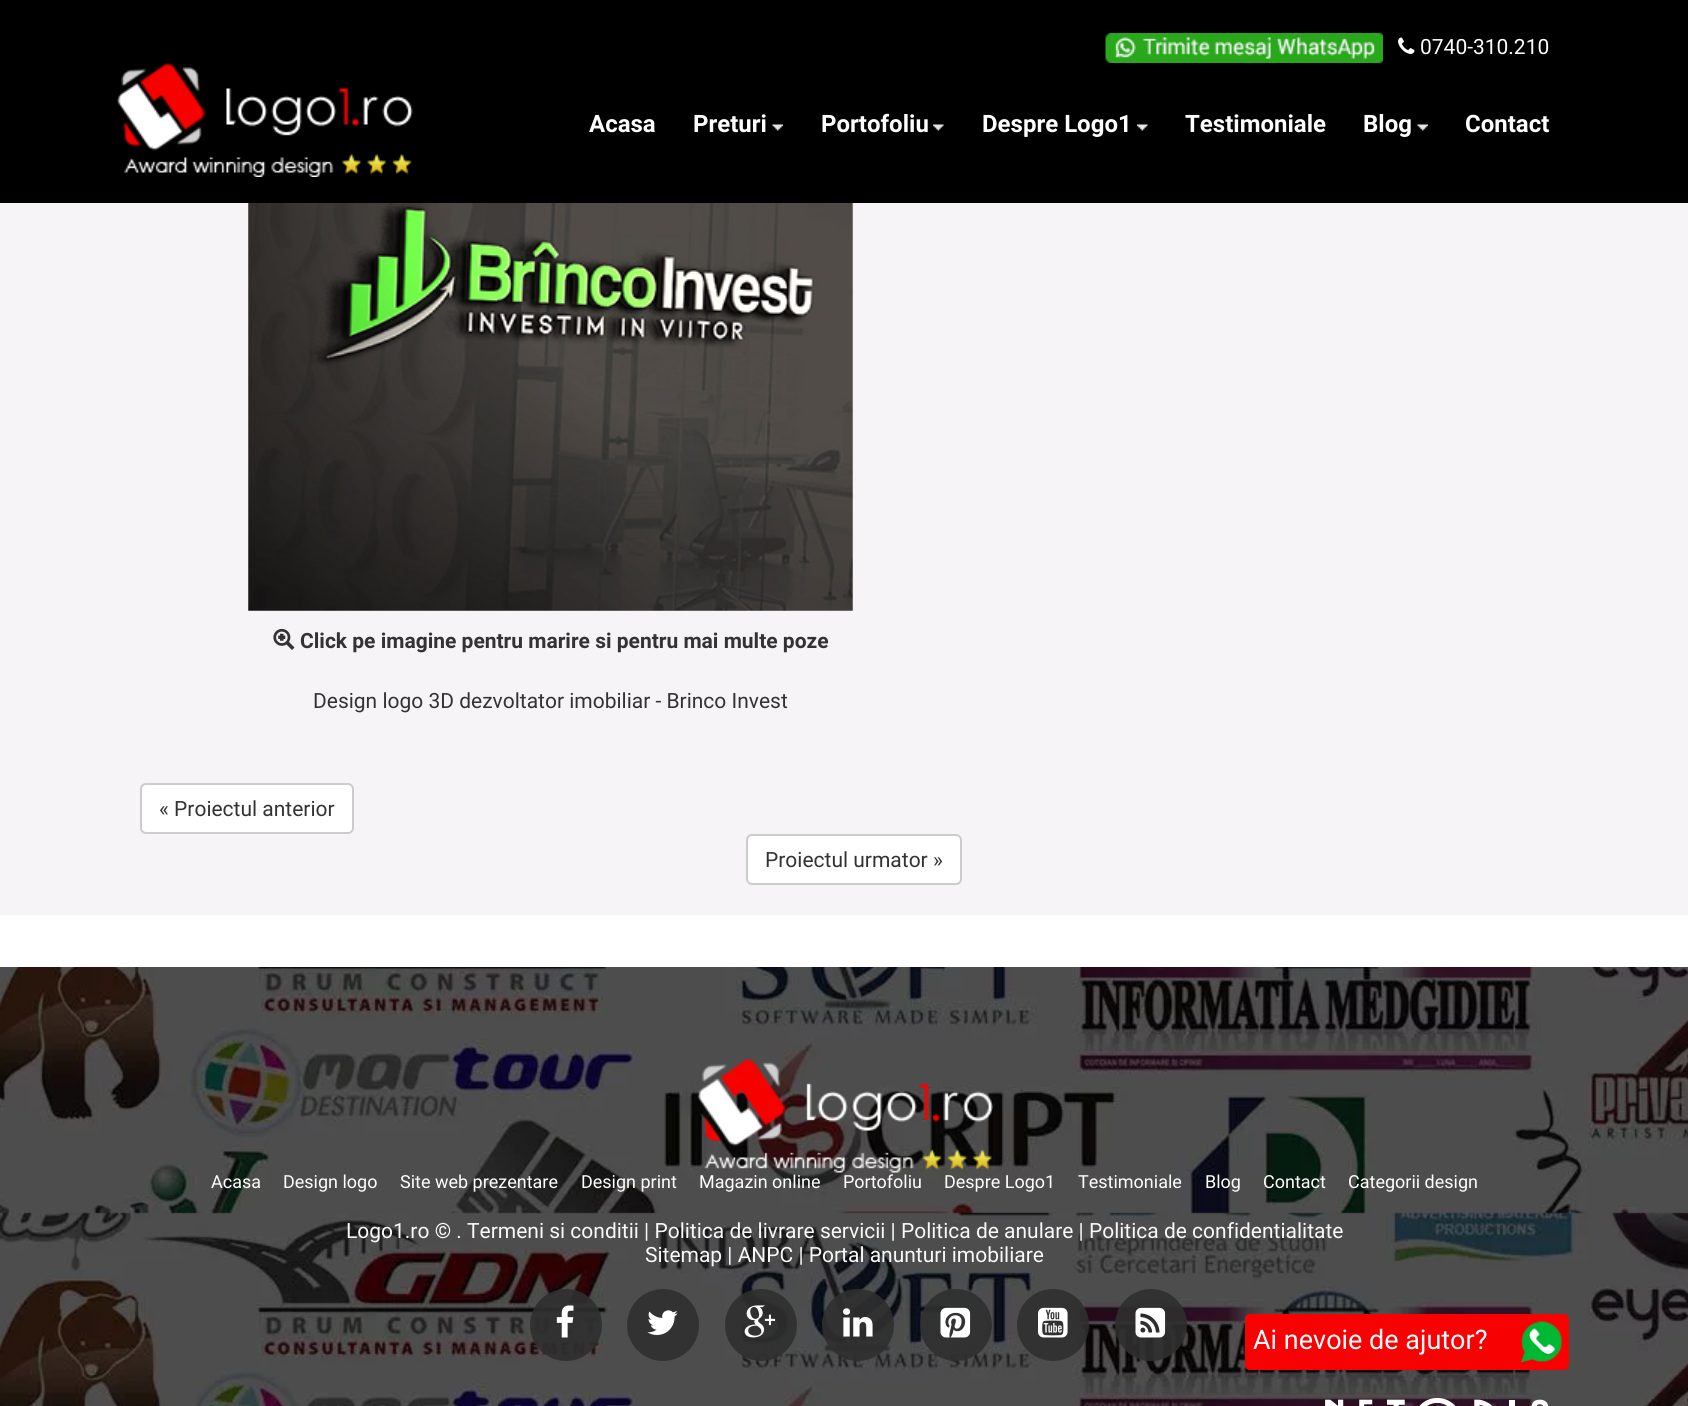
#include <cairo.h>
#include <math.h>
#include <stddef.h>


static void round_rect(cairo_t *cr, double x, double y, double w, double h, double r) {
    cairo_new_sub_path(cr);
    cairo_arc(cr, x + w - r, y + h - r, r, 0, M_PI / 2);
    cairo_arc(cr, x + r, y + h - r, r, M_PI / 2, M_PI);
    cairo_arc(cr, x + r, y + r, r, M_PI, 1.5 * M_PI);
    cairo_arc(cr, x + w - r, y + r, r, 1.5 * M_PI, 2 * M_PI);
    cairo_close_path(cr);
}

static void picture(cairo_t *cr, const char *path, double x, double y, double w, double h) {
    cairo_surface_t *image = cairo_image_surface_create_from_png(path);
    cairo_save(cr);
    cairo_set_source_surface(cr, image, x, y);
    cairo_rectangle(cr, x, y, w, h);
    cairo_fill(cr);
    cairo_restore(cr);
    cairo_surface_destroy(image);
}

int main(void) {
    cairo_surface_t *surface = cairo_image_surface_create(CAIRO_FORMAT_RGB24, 1688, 1406);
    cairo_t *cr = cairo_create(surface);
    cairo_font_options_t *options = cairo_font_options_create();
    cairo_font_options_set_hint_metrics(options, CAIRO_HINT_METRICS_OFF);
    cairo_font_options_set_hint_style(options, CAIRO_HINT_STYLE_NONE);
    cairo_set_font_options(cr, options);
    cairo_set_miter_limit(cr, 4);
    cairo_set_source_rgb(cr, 1, 1, 1);
    cairo_paint(cr);
    cairo_set_source_rgb(cr, 0, 0, 0);
    cairo_rectangle(cr, 0, 0, 1688, 203);
    cairo_fill(cr);
    picture(cr, "img1.png", 1105, 33, 278, 30);
    picture(cr, "img2.png", 1398, 37, 17, 17);
    cairo_select_font_face(cr, "Roboto", CAIRO_FONT_SLANT_NORMAL, CAIRO_FONT_WEIGHT_NORMAL);
    cairo_set_font_size(cr, 21);
    cairo_set_source_rgb(cr, 1, 1, 1);
    cairo_move_to(cr, 1420, 54);
    cairo_show_text(cr, "0740-310.210");
    picture(cr, "img3.png", 117, 63, 296, 114);
    cairo_select_font_face(cr, "Roboto", CAIRO_FONT_SLANT_NORMAL, CAIRO_FONT_WEIGHT_BOLD);
    cairo_set_font_size(cr, 24);
    cairo_move_to(cr, 589, 132);
    cairo_show_text(cr, "Acasa");
    cairo_move_to(cr, 693, 132);
    cairo_show_text(cr, "Preturi");
    picture(cr, "img4.png", 772, 124, 11, 7);
    cairo_move_to(cr, 821, 132);
    cairo_show_text(cr, "Portofoliu");
    picture(cr, "img5.png", 933, 124, 11, 7);
    cairo_move_to(cr, 982, 132);
    cairo_show_text(cr, "Despre Logo1");
    picture(cr, "img5.png", 1137, 124, 11, 7);
    cairo_move_to(cr, 1185, 132);
    cairo_show_text(cr, "Testimoniale");
    cairo_move_to(cr, 1363, 132);
    cairo_show_text(cr, "Blog");
    picture(cr, "img4.png", 1417, 124, 11, 7);
    cairo_move_to(cr, 1465, 132);
    cairo_show_text(cr, "Contact");
    cairo_set_source_rgb(cr, 0.961, 0.957, 0.961);
    cairo_rectangle(cr, 0, 203, 1688, 712);
    cairo_fill(cr);
    picture(cr, "img6.png", 248, 203, 605, 408);
    picture(cr, "img7.png", 273, 628, 22, 22);
    cairo_set_font_size(cr, 21);
    cairo_set_source_rgb(cr, 0.2, 0.2, 0.2);
    cairo_move_to(cr, 300, 648);
    cairo_show_text(cr, "Click pe imagine pentru marire si pentru mai multe poze");
    cairo_select_font_face(cr, "Roboto", CAIRO_FONT_SLANT_NORMAL, CAIRO_FONT_WEIGHT_NORMAL);
    cairo_move_to(cr, 313, 708);
    cairo_show_text(cr, "Design logo 3D dezvoltator imobiliar - Brinco Invest");
    cairo_set_source_rgb(cr, 1, 1, 1);
    round_rect(cr, 141, 784, 212, 49, 5);
    cairo_fill_preserve(cr);
    cairo_set_source_rgb(cr, 0.8, 0.8, 0.8);
    cairo_stroke(cr);
    cairo_set_source_rgb(cr, 0.2, 0.2, 0.2);
    cairo_move_to(cr, 159, 816);
    cairo_show_text(cr, "« Proiectul anterior");
    cairo_set_source_rgb(cr, 1, 1, 1);
    round_rect(cr, 747, 835, 214, 49, 5);
    cairo_fill_preserve(cr);
    cairo_set_source_rgb(cr, 0.8, 0.8, 0.8);
    cairo_stroke(cr);
    cairo_set_source_rgb(cr, 0.2, 0.2, 0.2);
    cairo_move_to(cr, 765, 867);
    cairo_show_text(cr, "Proiectul urmator »");
    picture(cr, "img8.png", 0, 967, 1688, 439);
    picture(cr, "img9.png", 697, 1058, 296, 115);
    cairo_set_font_size(cr, 18);
    cairo_set_source_rgb(cr, 1, 1, 1);
    cairo_move_to(cr, 211, 1188);
    cairo_show_text(cr, "Acasa");
    cairo_move_to(cr, 283, 1188);
    cairo_show_text(cr, "Design logo");
    cairo_move_to(cr, 400, 1188);
    cairo_show_text(cr, "Site web prezentare");
    cairo_move_to(cr, 581, 1188);
    cairo_show_text(cr, "Design print");
    cairo_move_to(cr, 699, 1188);
    cairo_show_text(cr, "Magazin online");
    cairo_move_to(cr, 843, 1188);
    cairo_show_text(cr, "Portofoliu");
    cairo_move_to(cr, 944, 1188);
    cairo_show_text(cr, "Despre Logo1");
    cairo_move_to(cr, 1078, 1188);
    cairo_show_text(cr, "Testimoniale");
    cairo_move_to(cr, 1205, 1188);
    cairo_show_text(cr, "Blog");
    cairo_move_to(cr, 1263, 1188);
    cairo_show_text(cr, "Contact");
    cairo_move_to(cr, 1348, 1188);
    cairo_show_text(cr, "Categorii design");
    cairo_set_font_size(cr, 21);
    cairo_set_source_rgb(cr, 0.973, 0.973, 0.973);
    cairo_move_to(cr, 346, 1238);
    cairo_show_text(cr, "Logo1.ro © . Termeni si conditii | Politica de livrare servicii | Politica de anulare | Politica de confidentialitate");
    cairo_move_to(cr, 645, 1262);
    cairo_show_text(cr, "Sitemap | ANPC | Portal anunturi imobiliare");
    cairo_set_source_rgba(cr, 0.184, 0.184, 0.184, 0.9);
    cairo_new_path(cr);
    cairo_arc(cr, 566, 1325, 36, 0, 2 * M_PI);
    cairo_fill(cr);
    picture(cr, "img10.png", 556, 1305, 18, 33);
    cairo_set_source_rgb(cr, 0.196, 0.196, 0.196);
    cairo_arc(cr, 663, 1325, 36, 0, 2 * M_PI);
    cairo_fill(cr);
    picture(cr, "img11.png", 647, 1310, 31, 25);
    cairo_set_source_rgba(cr, 0.184, 0.184, 0.184, 0.9);
    cairo_arc(cr, 761, 1325, 36, 0, 2 * M_PI);
    cairo_fill(cr);
    picture(cr, "img12.png", 744, 1305, 32, 33);
    cairo_arc(cr, 858, 1325, 36, 0, 2 * M_PI);
    cairo_fill(cr);
    picture(cr, "img13.png", 843, 1308, 30, 29);
    cairo_arc(cr, 956, 1325, 36, 0, 2 * M_PI);
    cairo_fill(cr);
    picture(cr, "img14.png", 940, 1307, 31, 31);
    cairo_arc(cr, 1053, 1325, 36, 0, 2 * M_PI);
    cairo_fill(cr);
    picture(cr, "img15.png", 1038, 1307, 30, 31);
    cairo_arc(cr, 1151, 1325, 36, 0, 2 * M_PI);
    cairo_fill(cr);
    picture(cr, "img16.png", 1135, 1307, 31, 31);
    picture(cr, "img17.png", 1325, 1398, 223, 8);
    cairo_set_source_rgb(cr, 0.969, 0.004, 0.008);
    round_rect(cr, 1245, 1314, 324, 56, 5);
    cairo_fill(cr);
    cairo_set_font_size(cr, 27);
    cairo_set_source_rgb(cr, 1, 1, 1);
    cairo_move_to(cr, 1253, 1349);
    cairo_show_text(cr, "Ai nevoie de ajutor?");
    picture(cr, "img18.png", 1521, 1321, 41, 41);
    cairo_surface_write_to_png(surface, "page.png");
    cairo_font_options_destroy(options);
    cairo_destroy(cr);
    cairo_surface_destroy(surface);
    return 0;
}
